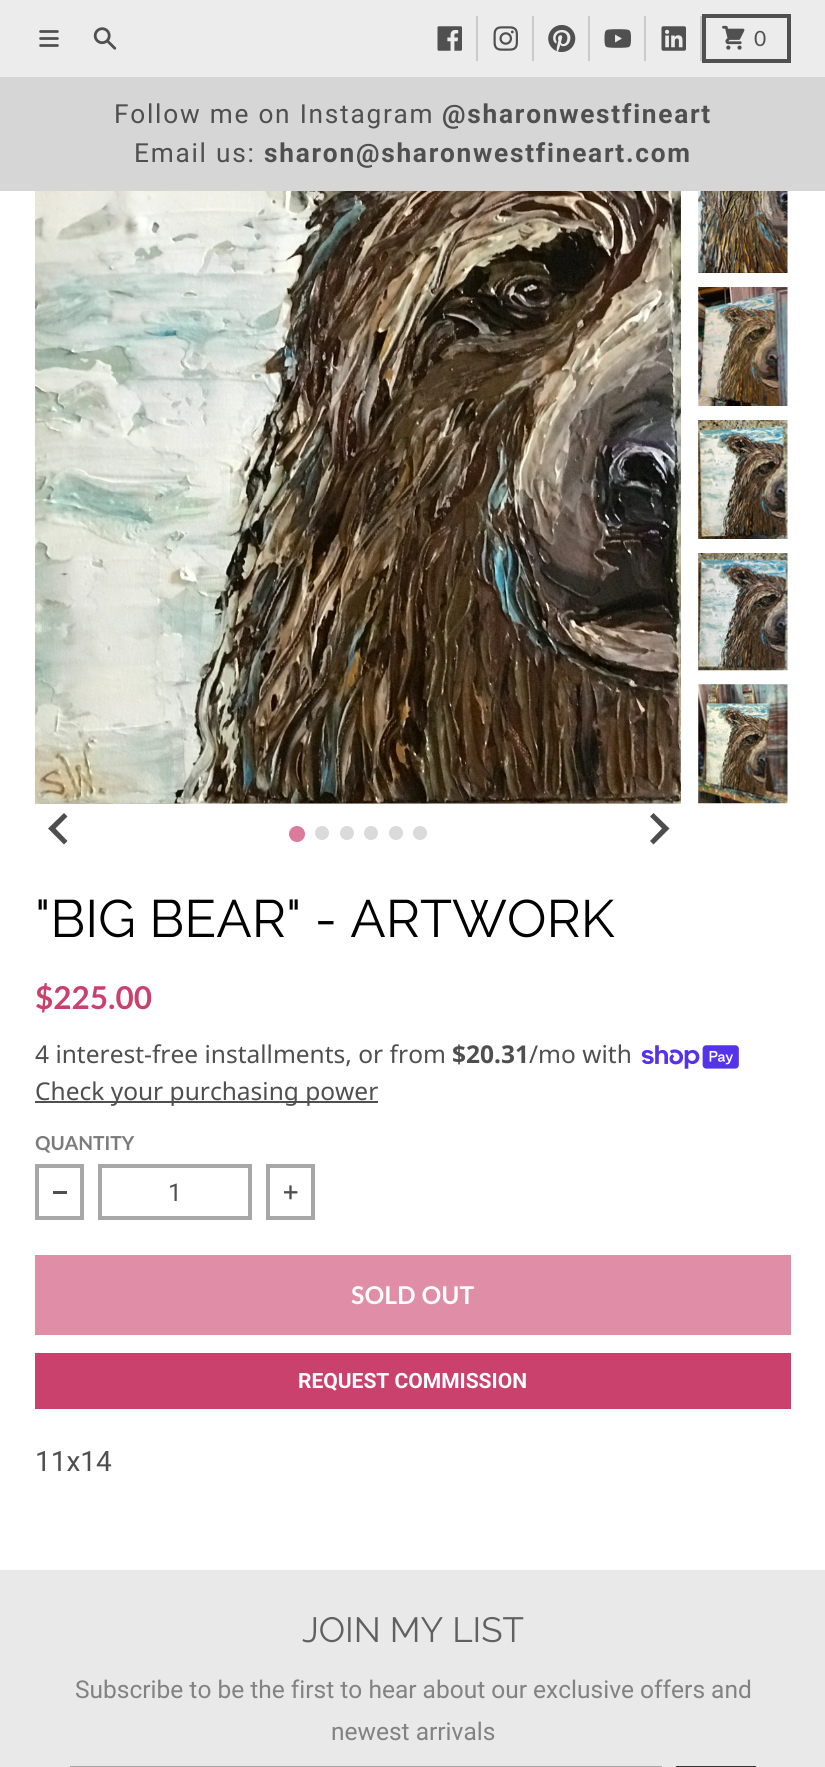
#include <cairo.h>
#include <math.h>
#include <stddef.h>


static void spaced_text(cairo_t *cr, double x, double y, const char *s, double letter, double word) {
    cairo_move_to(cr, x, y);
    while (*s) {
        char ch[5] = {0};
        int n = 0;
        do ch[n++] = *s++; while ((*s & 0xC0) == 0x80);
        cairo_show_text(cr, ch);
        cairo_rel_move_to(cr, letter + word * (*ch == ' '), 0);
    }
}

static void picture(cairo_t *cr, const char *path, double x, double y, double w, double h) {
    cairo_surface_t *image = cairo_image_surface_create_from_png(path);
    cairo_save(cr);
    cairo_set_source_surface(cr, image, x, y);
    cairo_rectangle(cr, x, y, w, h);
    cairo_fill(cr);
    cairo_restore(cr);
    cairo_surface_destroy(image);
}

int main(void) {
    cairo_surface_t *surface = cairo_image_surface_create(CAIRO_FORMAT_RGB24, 825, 1767);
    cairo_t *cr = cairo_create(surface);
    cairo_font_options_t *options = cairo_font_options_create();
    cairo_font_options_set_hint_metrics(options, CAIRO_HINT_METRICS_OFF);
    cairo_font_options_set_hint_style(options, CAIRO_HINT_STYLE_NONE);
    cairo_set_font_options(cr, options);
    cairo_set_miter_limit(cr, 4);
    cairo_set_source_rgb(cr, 0.914, 0.914, 0.914);
    cairo_paint(cr);
    cairo_set_source_rgb(cr, 0.925, 0.925, 0.925);
    cairo_rectangle(cr, 0, 0, 825, 77);
    cairo_fill(cr);
    picture(cr, "img1.png", 39, 30, 20, 17);
    picture(cr, "img2.png", 93, 27, 24, 23);
    cairo_set_source_rgb(cr, 0.792, 0.792, 0.792);
    cairo_rectangle(cr, 476, 16, 2, 45);
    cairo_fill(cr);
    picture(cr, "img3.png", 437, 26, 25, 25);
    cairo_rectangle(cr, 532, 16, 2, 45);
    cairo_fill(cr);
    picture(cr, "img4.png", 493, 26, 25, 25);
    cairo_rectangle(cr, 588, 16, 2, 45);
    cairo_fill(cr);
    picture(cr, "img5.png", 548, 25, 28, 28);
    cairo_rectangle(cr, 644, 16, 2, 45);
    cairo_fill(cr);
    picture(cr, "img6.png", 604, 29, 27, 19);
    cairo_rectangle(cr, 700, 16, 2, 45);
    cairo_fill(cr);
    picture(cr, "img7.png", 661, 26, 25, 25);
    cairo_rectangle(cr, 704, 16, 85, 45);
    cairo_set_source_rgb(cr, 0.314, 0.314, 0.314);
    cairo_set_line_width(cr, 4);
    cairo_stroke(cr);
    picture(cr, "img8.png", 722, 25, 23, 25);
    cairo_select_font_face(cr, "Lato", CAIRO_FONT_SLANT_NORMAL, CAIRO_FONT_WEIGHT_NORMAL);
    cairo_set_font_size(cr, 21);
    cairo_set_source_rgb(cr, 0.31, 0.31, 0.31);
    cairo_move_to(cr, 754, 46);
    cairo_show_text(cr, "0");
    cairo_set_source_rgb(cr, 0.839, 0.839, 0.839);
    cairo_rectangle(cr, 0, 77, 825, 114);
    cairo_fill(cr);
    cairo_select_font_face(cr, "Roboto", CAIRO_FONT_SLANT_NORMAL, CAIRO_FONT_WEIGHT_NORMAL);
    cairo_set_font_size(cr, 26.25);
    cairo_set_source_rgb(cr, 0.31, 0.31, 0.31);
    spaced_text(cr, 114, 123, "Follow me on Instagram", 1.75, 0);
    cairo_select_font_face(cr, "Roboto", CAIRO_FONT_SLANT_NORMAL, CAIRO_FONT_WEIGHT_BOLD);
    spaced_text(cr, 442, 123, "@sharonwestfineart", 1.75, 0);
    cairo_select_font_face(cr, "Roboto", CAIRO_FONT_SLANT_NORMAL, CAIRO_FONT_WEIGHT_NORMAL);
    spaced_text(cr, 134, 162, "Email us:", 1.75, 0);
    cairo_select_font_face(cr, "Roboto", CAIRO_FONT_SLANT_NORMAL, CAIRO_FONT_WEIGHT_BOLD);
    spaced_text(cr, 264, 162, "sharon@sharonwestfineart.com", 1.75, 0);
    cairo_set_source_rgb(cr, 1, 1, 1);
    cairo_rectangle(cr, 0, 191, 825, 1379);
    cairo_fill(cr);
    picture(cr, "img9.png", 35, 191, 646, 613);
    picture(cr, "img10.png", 35, 191, 646, 613);
    cairo_set_source_rgb(cr, 0.302, 0.302, 0.302);
    cairo_new_path(cr);
    cairo_move_to(cr, 64, 813);
    cairo_line_to(cr, 67.5, 816.5);
    cairo_line_to(cr, 55.5, 828.5);
    cairo_line_to(cr, 67.5, 841);
    cairo_line_to(cr, 64, 844.5);
    cairo_line_to(cr, 48, 828.5);
    cairo_close_path(cr);
    cairo_fill(cr);
    cairo_new_path(cr);
    cairo_move_to(cr, 653.5, 813);
    cairo_line_to(cr, 650, 816.5);
    cairo_line_to(cr, 662, 828.5);
    cairo_line_to(cr, 650, 841);
    cairo_line_to(cr, 653.5, 844.5);
    cairo_line_to(cr, 669.5, 828.5);
    cairo_close_path(cr);
    cairo_fill(cr);
    cairo_set_source_rgb(cr, 0.859, 0.478, 0.604);
    cairo_arc(cr, 297, 834, 8, 0, 2 * M_PI);
    cairo_fill(cr);
    cairo_set_source_rgb(cr, 0.855, 0.855, 0.855);
    cairo_arc(cr, 322, 833, 7, 0, 2 * M_PI);
    cairo_fill(cr);
    cairo_arc(cr, 347, 833, 7, 0, 2 * M_PI);
    cairo_fill(cr);
    cairo_arc(cr, 371, 833, 7, 0, 2 * M_PI);
    cairo_fill(cr);
    cairo_arc(cr, 396, 833, 7, 0, 2 * M_PI);
    cairo_fill(cr);
    cairo_arc(cr, 420, 833, 7, 0, 2 * M_PI);
    cairo_fill(cr);
    picture(cr, "img11.png", 698, 191, 90, 82);
    picture(cr, "img12.png", 698, 287, 90, 119);
    picture(cr, "img13.png", 698, 420, 90, 119);
    picture(cr, "img14.png", 698, 553, 90, 118);
    picture(cr, "img15.png", 698, 684, 90, 120);
    cairo_select_font_face(cr, "Raleway", CAIRO_FONT_SLANT_NORMAL, CAIRO_FONT_WEIGHT_NORMAL);
    cairo_set_font_size(cr, 52.5);
    cairo_set_source_rgb(cr, 0, 0, 0);
    cairo_move_to(cr, 35, 937);
    cairo_show_text(cr, "\"BIG BEAR\" - ARTWORK");
    cairo_select_font_face(cr, "Lato", CAIRO_FONT_SLANT_NORMAL, CAIRO_FONT_WEIGHT_BOLD);
    cairo_set_font_size(cr, 31.5);
    cairo_set_source_rgb(cr, 0.796, 0.255, 0.431);
    cairo_move_to(cr, 35, 1009);
    cairo_show_text(cr, "$225.00");
    cairo_select_font_face(cr, "Noto Sans", CAIRO_FONT_SLANT_NORMAL, CAIRO_FONT_WEIGHT_NORMAL);
    cairo_set_font_size(cr, 24.5);
    cairo_set_source_rgb(cr, 0.31, 0.31, 0.31);
    cairo_move_to(cr, 35, 1063);
    cairo_show_text(cr, "4 interest-free installments, or from");
    cairo_select_font_face(cr, "Noto Sans", CAIRO_FONT_SLANT_NORMAL, CAIRO_FONT_WEIGHT_BOLD);
    cairo_move_to(cr, 452, 1063);
    cairo_show_text(cr, "$20.31");
    cairo_select_font_face(cr, "Noto Sans", CAIRO_FONT_SLANT_NORMAL, CAIRO_FONT_WEIGHT_NORMAL);
    cairo_move_to(cr, 529, 1063);
    cairo_show_text(cr, "/mo with");
    picture(cr, "img16.png", 641, 1045, 98, 24);
    cairo_rectangle(cr, 35, 1101, 343, 2);
    cairo_fill(cr);
    cairo_move_to(cr, 35, 1100);
    cairo_show_text(cr, "Check your purchasing power");
    cairo_select_font_face(cr, "Lato", CAIRO_FONT_SLANT_NORMAL, CAIRO_FONT_WEIGHT_BOLD);
    cairo_set_font_size(cr, 19.25);
    cairo_set_source_rgb(cr, 0.482, 0.482, 0.482);
    cairo_move_to(cr, 35, 1150);
    cairo_show_text(cr, "QUANTITY");
    cairo_rectangle(cr, 37, 1166, 45, 52);
    cairo_set_source_rgb(cr, 0.655, 0.655, 0.655);
    cairo_stroke(cr);
    cairo_set_source_rgb(cr, 0.31, 0.31, 0.31);
    cairo_rectangle(cr, 53, 1191, 14, 3);
    cairo_fill(cr);
    cairo_rectangle(cr, 100, 1166, 150, 52);
    cairo_set_source_rgb(cr, 0.655, 0.655, 0.655);
    cairo_stroke(cr);
    cairo_select_font_face(cr, "Roboto", CAIRO_FONT_SLANT_NORMAL, CAIRO_FONT_WEIGHT_NORMAL);
    cairo_set_font_size(cr, 24.5);
    cairo_set_source_rgb(cr, 0.31, 0.31, 0.31);
    cairo_move_to(cr, 168, 1201);
    cairo_show_text(cr, "1");
    cairo_rectangle(cr, 268, 1166, 45, 52);
    cairo_set_source_rgb(cr, 0.655, 0.655, 0.655);
    cairo_stroke(cr);
    picture(cr, "img17.png", 284, 1185, 14, 15);
    cairo_set_source_rgb(cr, 0.878, 0.553, 0.659);
    cairo_rectangle(cr, 35, 1255, 756, 80);
    cairo_fill(cr);
    cairo_select_font_face(cr, "Lato", CAIRO_FONT_SLANT_NORMAL, CAIRO_FONT_WEIGHT_BOLD);
    cairo_set_source_rgb(cr, 1, 1, 1);
    cairo_move_to(cr, 351, 1304);
    cairo_show_text(cr, "SOLD OUT");
    cairo_set_source_rgb(cr, 0.796, 0.255, 0.431);
    cairo_rectangle(cr, 35, 1353, 756, 56);
    cairo_fill(cr);
    cairo_select_font_face(cr, "Roboto", CAIRO_FONT_SLANT_NORMAL, CAIRO_FONT_WEIGHT_BOLD);
    cairo_set_font_size(cr, 21);
    cairo_set_source_rgb(cr, 1, 1, 1);
    cairo_move_to(cr, 298, 1388);
    cairo_show_text(cr, "REQUEST COMMISSION");
    cairo_select_font_face(cr, "Roboto", CAIRO_FONT_SLANT_NORMAL, CAIRO_FONT_WEIGHT_NORMAL);
    cairo_set_font_size(cr, 28);
    cairo_set_source_rgb(cr, 0.31, 0.31, 0.31);
    cairo_move_to(cr, 35, 1471);
    cairo_show_text(cr, "11x14");
    cairo_select_font_face(cr, "Raleway", CAIRO_FONT_SLANT_NORMAL, CAIRO_FONT_WEIGHT_NORMAL);
    cairo_set_font_size(cr, 35);
    cairo_set_source_rgb(cr, 0.376, 0.376, 0.376);
    cairo_move_to(cr, 302, 1642);
    cairo_show_text(cr, "JOIN MY LIST");
    cairo_select_font_face(cr, "Roboto", CAIRO_FONT_SLANT_NORMAL, CAIRO_FONT_WEIGHT_NORMAL);
    cairo_set_font_size(cr, 24.5);
    cairo_set_source_rgb(cr, 0.51, 0.51, 0.51);
    cairo_move_to(cr, 75, 1698);
    cairo_show_text(cr, "Subscribe to be the first to hear about our exclusive offers and");
    cairo_move_to(cr, 331, 1740);
    cairo_show_text(cr, "newest arrivals");
    cairo_rectangle(cr, 72, 1768, 588, 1);
    cairo_set_source_rgb(cr, 0.647, 0.647, 0.647);
    cairo_stroke(cr);
    cairo_set_source_rgb(cr, 0.2, 0.2, 0.2);
    cairo_rectangle(cr, 676, 1766, 80, 1);
    cairo_fill(cr);
    cairo_surface_write_to_png(surface, "page.png");
    cairo_font_options_destroy(options);
    cairo_destroy(cr);
    cairo_surface_destroy(surface);
    return 0;
}
